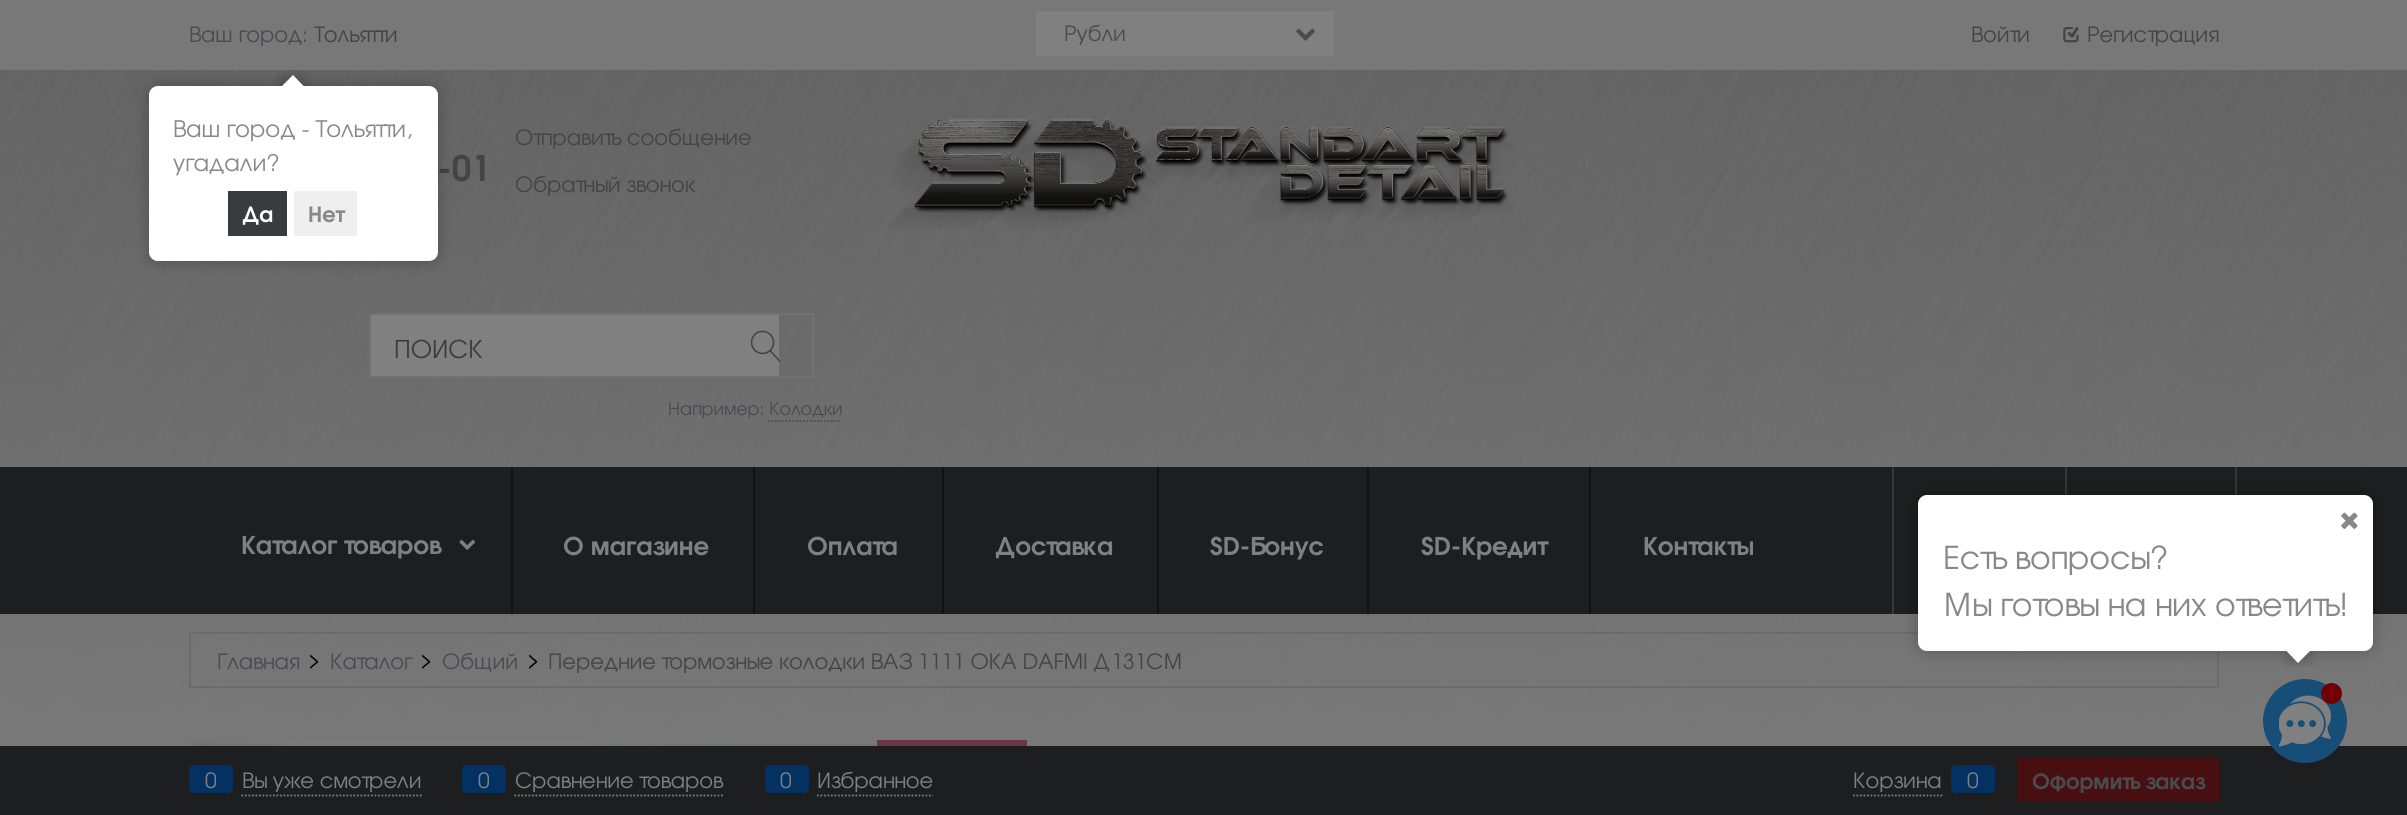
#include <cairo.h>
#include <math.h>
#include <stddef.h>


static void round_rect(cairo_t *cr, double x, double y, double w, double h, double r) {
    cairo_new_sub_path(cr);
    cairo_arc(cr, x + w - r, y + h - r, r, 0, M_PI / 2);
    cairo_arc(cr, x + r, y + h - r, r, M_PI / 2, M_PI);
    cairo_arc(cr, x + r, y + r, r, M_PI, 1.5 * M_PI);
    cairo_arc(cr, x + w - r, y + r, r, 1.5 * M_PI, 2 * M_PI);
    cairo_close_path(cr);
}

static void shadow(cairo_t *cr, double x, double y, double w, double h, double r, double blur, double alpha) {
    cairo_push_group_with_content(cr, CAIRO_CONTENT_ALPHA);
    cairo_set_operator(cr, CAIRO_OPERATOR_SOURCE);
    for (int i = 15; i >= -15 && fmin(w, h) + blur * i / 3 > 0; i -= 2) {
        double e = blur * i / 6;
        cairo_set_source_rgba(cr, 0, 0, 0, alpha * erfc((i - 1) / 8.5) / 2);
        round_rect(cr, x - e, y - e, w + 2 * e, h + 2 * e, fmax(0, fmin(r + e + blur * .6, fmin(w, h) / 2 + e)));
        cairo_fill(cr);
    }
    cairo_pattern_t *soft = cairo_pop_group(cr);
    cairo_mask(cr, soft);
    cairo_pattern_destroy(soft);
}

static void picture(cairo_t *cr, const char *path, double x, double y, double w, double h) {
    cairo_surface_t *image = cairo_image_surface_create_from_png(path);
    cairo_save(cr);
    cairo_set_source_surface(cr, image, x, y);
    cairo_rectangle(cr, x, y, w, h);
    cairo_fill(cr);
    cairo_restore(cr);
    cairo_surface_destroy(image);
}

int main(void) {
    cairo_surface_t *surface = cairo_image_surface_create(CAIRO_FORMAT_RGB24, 2407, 815);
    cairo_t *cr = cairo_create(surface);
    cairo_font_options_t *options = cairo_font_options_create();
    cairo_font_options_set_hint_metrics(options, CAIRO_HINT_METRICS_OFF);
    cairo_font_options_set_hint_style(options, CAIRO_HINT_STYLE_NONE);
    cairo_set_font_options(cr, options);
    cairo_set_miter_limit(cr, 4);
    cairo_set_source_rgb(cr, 1, 1, 1);
    cairo_paint(cr);
    picture(cr, "img1.png", 0, 0, 2407, 746);
    cairo_set_source_rgba(cr, 0.478, 0.478, 0.478, 0.9);
    cairo_rectangle(cr, 0, 0, 2407, 70);
    cairo_fill(cr);
    cairo_select_font_face(cr, "TeX Gyre Adventor", CAIRO_FONT_SLANT_NORMAL, CAIRO_FONT_WEIGHT_NORMAL);
    cairo_set_font_size(cr, 21);
    cairo_set_source_rgb(cr, 0.29, 0.294, 0.306);
    cairo_move_to(cr, 189, 42);
    cairo_show_text(cr, "Ваш город:");
    cairo_set_source_rgb(cr, 0.267, 0.267, 0.267);
    cairo_move_to(cr, 314, 42);
    cairo_show_text(cr, "Тольятти");
    cairo_set_source_rgb(cr, 0.502, 0.502, 0.502);
    cairo_rectangle(cr, 1036, 11, 298, 45);
    cairo_fill(cr);
    cairo_set_source_rgb(cr, 0.29, 0.294, 0.306);
    cairo_move_to(cr, 1064, 41);
    cairo_show_text(cr, "Рубли");
    picture(cr, "img2.png", 1296, 28, 19, 13);
    cairo_set_source_rgb(cr, 0.267, 0.267, 0.267);
    cairo_move_to(cr, 1971, 42);
    cairo_show_text(cr, "Войти");
    picture(cr, "img3.png", 2063, 27, 16, 16);
    cairo_move_to(cr, 2087, 42);
    cairo_show_text(cr, "Регистрация");
    cairo_select_font_face(cr, "TeX Gyre Adventor", CAIRO_FONT_SLANT_NORMAL, CAIRO_FONT_WEIGHT_BOLD);
    cairo_set_font_size(cr, 35);
    cairo_move_to(cr, 437, 181);
    cairo_show_text(cr, "-01");
    cairo_select_font_face(cr, "TeX Gyre Adventor", CAIRO_FONT_SLANT_NORMAL, CAIRO_FONT_WEIGHT_NORMAL);
    cairo_set_font_size(cr, 21);
    cairo_move_to(cr, 515, 145);
    cairo_show_text(cr, "Отправить сообщение");
    cairo_move_to(cr, 515, 192);
    cairo_show_text(cr, "Обратный звонок");
    picture(cr, "img4.png", 887, 118, 628, 111);
    cairo_set_source_rgb(cr, 0.502, 0.502, 0.502);
    cairo_rectangle(cr, 371, 315, 408, 61);
    cairo_fill(cr);
    cairo_set_source_rgb(cr, 0.443, 0.447, 0.447);
    cairo_rectangle(cr, 369, 313, 445, 2);
    cairo_fill(cr);
    cairo_rectangle(cr, 369, 376, 364, 2);
    cairo_fill(cr);
    cairo_rectangle(cr, 369, 313, 2, 65);
    cairo_fill(cr);
    cairo_set_font_size(cr, 24.5);
    cairo_set_source_rgb(cr, 0.231, 0.231, 0.231);
    cairo_move_to(cr, 394, 358);
    cairo_show_text(cr, "ПОИСК");
    cairo_set_source_rgb(cr, 0.443, 0.447, 0.447);
    cairo_rectangle(cr, 812, 313, 2, 65);
    cairo_fill(cr);
    cairo_rectangle(cr, 733, 376, 81, 2);
    cairo_fill(cr);
    picture(cr, "img5.png", 750, 330, 31, 32);
    cairo_set_font_size(cr, 17.5);
    cairo_set_source_rgb(cr, 0.29, 0.294, 0.306);
    cairo_move_to(cr, 668, 415);
    cairo_show_text(cr, "Например: Колодки");
    cairo_new_path(cr);
    cairo_move_to(cr, 768, 421);
    cairo_line_to(cr, 842, 421);
    cairo_set_line_width(cr, 1.8);
    cairo_set_dash(cr, (double[]){1.75, 1.75}, 2, 0);
    cairo_stroke(cr);
    cairo_set_source_rgb(cr, 0.11, 0.118, 0.125);
    cairo_rectangle(cr, 0, 467, 2407, 147);
    cairo_fill(cr);
    cairo_set_source_rgb(cr, 0.204, 0.212, 0.22);
    cairo_rectangle(cr, 1892, 467, 2, 147);
    cairo_fill(cr);
    cairo_rectangle(cr, 2235, 467, 2, 28);
    cairo_fill(cr);
    cairo_rectangle(cr, 2065, 467, 2, 28);
    cairo_fill(cr);
    cairo_set_source_rgb(cr, 0.067, 0.067, 0.071);
    cairo_rectangle(cr, 511, 467, 2, 147);
    cairo_fill(cr);
    cairo_select_font_face(cr, "TeX Gyre Adventor", CAIRO_FONT_SLANT_NORMAL, CAIRO_FONT_WEIGHT_BOLD);
    cairo_set_font_size(cr, 24.5);
    cairo_set_source_rgb(cr, 0.502, 0.502, 0.502);
    cairo_move_to(cr, 241, 554);
    cairo_show_text(cr, "Каталог товаров");
    picture(cr, "img6.png", 459, 539, 17, 11);
    cairo_set_source_rgb(cr, 0.067, 0.067, 0.071);
    cairo_rectangle(cr, 753, 467, 2, 147);
    cairo_fill(cr);
    cairo_set_source_rgb(cr, 0.502, 0.502, 0.502);
    cairo_move_to(cr, 563, 555);
    cairo_show_text(cr, "О магазине");
    cairo_set_source_rgb(cr, 0.067, 0.067, 0.071);
    cairo_rectangle(cr, 942, 467, 2, 147);
    cairo_fill(cr);
    cairo_set_source_rgb(cr, 0.502, 0.502, 0.502);
    cairo_move_to(cr, 807, 555);
    cairo_show_text(cr, "Оплата");
    cairo_set_source_rgb(cr, 0.067, 0.067, 0.071);
    cairo_rectangle(cr, 1157, 467, 2, 147);
    cairo_fill(cr);
    cairo_set_source_rgb(cr, 0.502, 0.502, 0.502);
    cairo_move_to(cr, 995, 555);
    cairo_show_text(cr, "Доставка");
    cairo_set_source_rgb(cr, 0.067, 0.067, 0.071);
    cairo_rectangle(cr, 1367, 467, 2, 147);
    cairo_fill(cr);
    cairo_set_source_rgb(cr, 0.502, 0.502, 0.502);
    cairo_move_to(cr, 1210, 555);
    cairo_show_text(cr, "SD-Бонус");
    cairo_set_source_rgb(cr, 0.067, 0.067, 0.071);
    cairo_rectangle(cr, 1589, 467, 2, 147);
    cairo_fill(cr);
    cairo_set_source_rgb(cr, 0.502, 0.502, 0.502);
    cairo_move_to(cr, 1421, 555);
    cairo_show_text(cr, "SD-Кредит");
    cairo_move_to(cr, 1643, 555);
    cairo_show_text(cr, "Контакты");
    cairo_rectangle(cr, 190, 633, 2028, 54);
    cairo_set_source_rgb(cr, 0.42, 0.42, 0.42);
    cairo_set_line_width(cr, 2);
    cairo_set_dash(cr, NULL, 0, 0);
    cairo_stroke(cr);
    cairo_select_font_face(cr, "TeX Gyre Adventor", CAIRO_FONT_SLANT_NORMAL, CAIRO_FONT_WEIGHT_NORMAL);
    cairo_set_font_size(cr, 21);
    cairo_set_source_rgb(cr, 0.29, 0.294, 0.306);
    cairo_move_to(cr, 217, 669);
    cairo_show_text(cr, "Главная");
    cairo_set_source_rgb(cr, 0, 0, 0);
    cairo_move_to(cr, 308, 667);
    cairo_show_text(cr, ">");
    cairo_set_source_rgb(cr, 0.29, 0.294, 0.306);
    cairo_move_to(cr, 330, 669);
    cairo_show_text(cr, "Каталог");
    cairo_set_source_rgb(cr, 0, 0, 0);
    cairo_move_to(cr, 420, 667);
    cairo_show_text(cr, ">");
    cairo_set_source_rgb(cr, 0.29, 0.294, 0.306);
    cairo_move_to(cr, 442, 669);
    cairo_show_text(cr, "Общий");
    cairo_set_source_rgb(cr, 0, 0, 0);
    cairo_move_to(cr, 527, 667);
    cairo_show_text(cr, ">");
    cairo_set_source_rgb(cr, 0.267, 0.267, 0.267);
    cairo_move_to(cr, 548, 669);
    cairo_show_text(cr, "Передние тормозные колодки ВАЗ 1111 ОКА DAFMI Д131СМ");
    picture(cr, "img7.png", 189, 740, 688, 6);
    cairo_set_source_rgb(cr, 0.416, 0.216, 0.286);
    cairo_rectangle(cr, 877, 740, 150, 6);
    cairo_fill(cr);
    cairo_set_source_rgb(cr, 0, 0, 0);
    shadow(cr, 149, 86, 289, 175, 9, 8, 0.25);
    cairo_set_source_rgb(cr, 1, 1, 1);
    round_rect(cr, 149, 86, 289, 175, 9);
    cairo_fill(cr);
    cairo_save(cr);
    cairo_rectangle(cr, 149, 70, 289, 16);
    cairo_clip(cr);
    cairo_set_source_rgb(cr, 0, 0, 0);
    shadow(cr, 284, 79, 17, 17, 0, 8, 0.25);
    cairo_restore(cr);
    cairo_save(cr);
    cairo_rectangle(cr, 149, 70, 289, 16);
    cairo_clip(cr);
    cairo_new_path(cr);
    cairo_move_to(cr, 293, 75);
    cairo_line_to(cr, 305, 87.5);
    cairo_line_to(cr, 293, 100);
    cairo_line_to(cr, 280.5, 87.5);
    cairo_close_path(cr);
    cairo_fill(cr);
    cairo_restore(cr);
    cairo_set_font_size(cr, 22.75);
    cairo_set_source_rgb(cr, 0.533, 0.533, 0.533);
    cairo_move_to(cr, 173, 137);
    cairo_show_text(cr, "Ваш город - Тольятти,");
    cairo_move_to(cr, 173, 171);
    cairo_show_text(cr, "угадали?");
    cairo_set_source_rgb(cr, 0.22, 0.231, 0.247);
    cairo_rectangle(cr, 228, 191, 59, 45);
    cairo_fill(cr);
    cairo_select_font_face(cr, "TeX Gyre Adventor", CAIRO_FONT_SLANT_NORMAL, CAIRO_FONT_WEIGHT_BOLD);
    cairo_set_font_size(cr, 21);
    cairo_set_source_rgb(cr, 1, 1, 1);
    cairo_move_to(cr, 242, 222);
    cairo_show_text(cr, "Да");
    cairo_set_source_rgb(cr, 0.937, 0.937, 0.937);
    cairo_rectangle(cr, 294, 191, 63, 45);
    cairo_fill(cr);
    cairo_set_source_rgb(cr, 0.533, 0.533, 0.533);
    cairo_move_to(cr, 308, 222);
    cairo_show_text(cr, "Нет");
    cairo_set_source_rgb(cr, 0, 0, 0);
    shadow(cr, 1918, 495, 455, 156, 9, 8, 0.25);
    cairo_set_source_rgb(cr, 1, 1, 1);
    round_rect(cr, 1918, 495, 455, 156, 9);
    cairo_fill(cr);
    picture(cr, "img8.png", 2341, 512, 17, 17);
    cairo_select_font_face(cr, "TeX Gyre Adventor", CAIRO_FONT_SLANT_NORMAL, CAIRO_FONT_WEIGHT_NORMAL);
    cairo_set_font_size(cr, 31.5);
    cairo_set_source_rgb(cr, 0.533, 0.533, 0.533);
    cairo_move_to(cr, 1943, 569);
    cairo_show_text(cr, "Есть вопросы?");
    cairo_move_to(cr, 1943, 616);
    cairo_show_text(cr, "Мы готовы на них ответить!");
    cairo_set_source_rgb(cr, 0.11, 0.118, 0.125);
    cairo_rectangle(cr, 0, 746, 2407, 69);
    cairo_fill(cr);
    cairo_set_source_rgb(cr, 0.09, 0.306, 0.467);
    cairo_arc(cr, 2305, 721, 42, 0, 2 * M_PI);
    cairo_fill(cr);
    picture(cr, "img9.png", 2279, 695, 52, 52);
    cairo_set_source_rgb(cr, 0.447, 0, 0.004);
    cairo_arc(cr, 2331.5, 693.5, 10.5, 0, 2 * M_PI);
    cairo_fill(cr);
    cairo_save(cr);
    cairo_rectangle(cr, 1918, 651, 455, 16);
    cairo_clip(cr);
    cairo_set_source_rgb(cr, 0, 0, 0);
    shadow(cr, 2289, 642, 18, 18, 0, 8, 0.25);
    cairo_restore(cr);
    cairo_save(cr);
    cairo_rectangle(cr, 1918, 651, 455, 16);
    cairo_clip(cr);
    cairo_set_source_rgb(cr, 1, 1, 1);
    cairo_new_path(cr);
    cairo_move_to(cr, 2298, 638);
    cairo_line_to(cr, 2310.5, 650.5);
    cairo_line_to(cr, 2298, 663);
    cairo_line_to(cr, 2286, 650.5);
    cairo_close_path(cr);
    cairo_fill(cr);
    cairo_restore(cr);
    cairo_new_path(cr);
    cairo_move_to(cr, 241.5, 795.5);
    cairo_line_to(cr, 422, 795.5);
    cairo_set_source_rgb(cr, 0.502, 0.502, 0.502);
    cairo_set_line_width(cr, 1.8);
    cairo_set_dash(cr, (double[]){1.75, 1.75}, 2, 0);
    cairo_stroke(cr);
    cairo_set_source_rgb(cr, 0.012, 0.192, 0.38);
    round_rect(cr, 189, 765, 44, 28, 5);
    cairo_fill(cr);
    cairo_set_font_size(cr, 21);
    cairo_set_source_rgb(cr, 0.502, 0.502, 0.502);
    cairo_move_to(cr, 205, 788);
    cairo_show_text(cr, "0");
    cairo_move_to(cr, 242, 788);
    cairo_show_text(cr, "Вы уже смотрели");
    cairo_new_path(cr);
    cairo_move_to(cr, 514.5, 795.5);
    cairo_line_to(cr, 723, 795.5);
    cairo_stroke(cr);
    cairo_set_source_rgb(cr, 0.012, 0.192, 0.38);
    round_rect(cr, 462, 765, 44, 28, 5);
    cairo_fill(cr);
    cairo_set_source_rgb(cr, 0.502, 0.502, 0.502);
    cairo_move_to(cr, 478, 788);
    cairo_show_text(cr, "0");
    cairo_move_to(cr, 515, 788);
    cairo_show_text(cr, "Сравнение товаров");
    cairo_new_path(cr);
    cairo_move_to(cr, 817, 795.5);
    cairo_line_to(cr, 933, 795.5);
    cairo_stroke(cr);
    cairo_set_source_rgb(cr, 0.012, 0.192, 0.38);
    round_rect(cr, 765, 765, 44, 28, 5);
    cairo_fill(cr);
    cairo_set_source_rgb(cr, 0.502, 0.502, 0.502);
    cairo_move_to(cr, 780, 788);
    cairo_show_text(cr, "0");
    cairo_move_to(cr, 817, 788);
    cairo_show_text(cr, "Избранное");
    cairo_new_path(cr);
    cairo_move_to(cr, 1853, 795.5);
    cairo_line_to(cr, 1942.5, 795.5);
    cairo_stroke(cr);
    cairo_move_to(cr, 1853, 788);
    cairo_show_text(cr, "Корзина");
    cairo_set_source_rgb(cr, 0.012, 0.192, 0.38);
    round_rect(cr, 1951, 765, 44, 28, 5);
    cairo_fill(cr);
    cairo_set_source_rgb(cr, 0.502, 0.502, 0.502);
    cairo_move_to(cr, 1967, 788);
    cairo_show_text(cr, "0");
    cairo_set_source_rgb(cr, 0.278, 0.059, 0.063);
    cairo_rectangle(cr, 2018, 758, 201, 44);
    cairo_fill(cr);
    cairo_select_font_face(cr, "TeX Gyre Adventor", CAIRO_FONT_SLANT_NORMAL, CAIRO_FONT_WEIGHT_BOLD);
    cairo_set_source_rgb(cr, 0.29, 0.294, 0.306);
    cairo_move_to(cr, 2032, 789);
    cairo_show_text(cr, "Оформить заказ");
    cairo_surface_write_to_png(surface, "page.png");
    cairo_font_options_destroy(options);
    cairo_destroy(cr);
    cairo_surface_destroy(surface);
    return 0;
}
